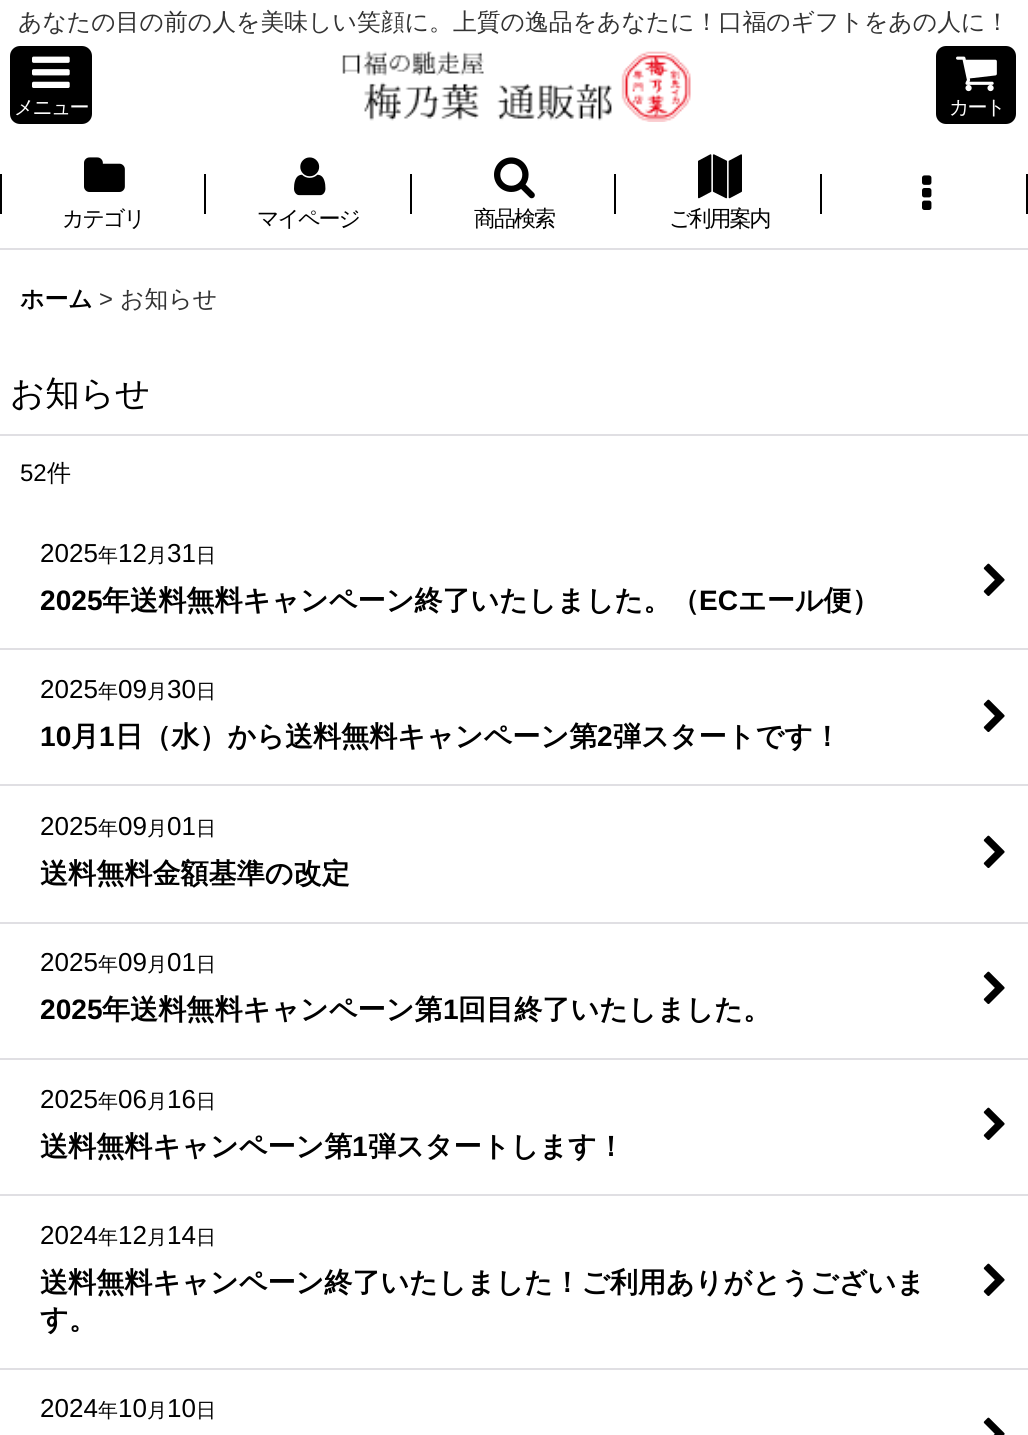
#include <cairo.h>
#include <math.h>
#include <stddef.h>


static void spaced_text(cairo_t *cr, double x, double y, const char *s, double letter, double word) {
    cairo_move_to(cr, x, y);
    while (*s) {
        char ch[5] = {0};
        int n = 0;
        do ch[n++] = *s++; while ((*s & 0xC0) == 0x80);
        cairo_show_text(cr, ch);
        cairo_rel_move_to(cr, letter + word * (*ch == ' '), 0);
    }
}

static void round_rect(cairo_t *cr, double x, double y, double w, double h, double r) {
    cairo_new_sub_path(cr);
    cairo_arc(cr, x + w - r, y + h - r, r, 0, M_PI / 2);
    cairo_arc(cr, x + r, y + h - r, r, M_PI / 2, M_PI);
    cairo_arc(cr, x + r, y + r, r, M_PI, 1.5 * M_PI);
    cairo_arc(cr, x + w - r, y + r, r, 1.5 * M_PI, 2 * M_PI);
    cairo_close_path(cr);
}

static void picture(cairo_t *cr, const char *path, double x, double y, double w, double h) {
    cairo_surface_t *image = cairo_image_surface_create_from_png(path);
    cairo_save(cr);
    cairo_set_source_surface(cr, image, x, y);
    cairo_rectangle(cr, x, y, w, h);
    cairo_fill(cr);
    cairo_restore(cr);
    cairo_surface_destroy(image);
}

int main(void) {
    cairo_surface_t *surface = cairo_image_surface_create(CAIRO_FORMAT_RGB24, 1028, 1435);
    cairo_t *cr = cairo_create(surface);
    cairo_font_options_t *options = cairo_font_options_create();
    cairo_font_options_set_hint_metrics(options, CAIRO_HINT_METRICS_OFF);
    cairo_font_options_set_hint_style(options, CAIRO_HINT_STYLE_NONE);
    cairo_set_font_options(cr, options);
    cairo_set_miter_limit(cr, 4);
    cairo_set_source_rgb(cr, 1, 1, 1);
    cairo_paint(cr);
    cairo_select_font_face(cr, "WenQuanYi Zen Hei Medium", CAIRO_FONT_SLANT_NORMAL, CAIRO_FONT_WEIGHT_NORMAL);
    cairo_set_font_size(cr, 23.85);
    cairo_set_source_rgb(cr, 0.2, 0.2, 0.2);
    cairo_move_to(cr, 18, 30);
    cairo_show_text(cr, "あなたの目の前の人を美味しい笑顔に。上質の逸品をあなたに！口福のギフトをあの人に！");
    cairo_set_source_rgb(cr, 0, 0, 0);
    round_rect(cr, 10, 46, 82, 78, 10);
    cairo_fill(cr);
    picture(cr, "img1.png", 32, 56, 38, 32);
    cairo_set_font_size(cr, 20);
    cairo_set_source_rgb(cr, 1, 1, 1);
    spaced_text(cr, 14, 114, "メニュー", -2, 0);
    picture(cr, "img2.png", 342, 51, 349, 71);
    cairo_set_source_rgb(cr, 0, 0, 0);
    round_rect(cr, 936, 46, 80, 78, 10);
    cairo_fill(cr);
    picture(cr, "img3.png", 956, 56, 41, 36);
    cairo_set_source_rgb(cr, 1, 1, 1);
    spaced_text(cr, 949, 114, "カート", -2, 0);
    cairo_set_source_rgb(cr, 0.878, 0.875, 0.89);
    cairo_rectangle(cr, 0, 248, 1028, 2);
    cairo_fill(cr);
    cairo_set_source_rgb(cr, 0, 0, 0);
    cairo_rectangle(cr, 1026, 174, 2, 40);
    cairo_fill(cr);
    picture(cr, "img4.png", 922, 175, 10, 35);
    picture(cr, "img5.png", 0, 174, 206, 40);
    picture(cr, "img6.png", 84, 157, 41, 35);
    cairo_set_font_size(cr, 22);
    spaced_text(cr, 62, 226, "カテゴリ", -2, 0);
    cairo_rectangle(cr, 410, 174, 2, 40);
    cairo_fill(cr);
    picture(cr, "img7.png", 294, 157, 32, 39);
    spaced_text(cr, 257, 226, "マイページ", -2, 0);
    cairo_rectangle(cr, 614, 174, 2, 40);
    cairo_fill(cr);
    picture(cr, "img8.png", 494, 157, 41, 42);
    spaced_text(cr, 474, 226, "商品検索", -2, 0);
    cairo_rectangle(cr, 820, 174, 2, 40);
    cairo_fill(cr);
    picture(cr, "img9.png", 698, 154, 44, 45);
    spaced_text(cr, 669, 226, "ご利用案内", -2, 0);
    cairo_select_font_face(cr, "WenQuanYi Zen Hei", CAIRO_FONT_SLANT_NORMAL, CAIRO_FONT_WEIGHT_BOLD);
    cairo_set_font_size(cr, 23.85);
    cairo_move_to(cr, 20, 307);
    cairo_show_text(cr, "ホーム");
    cairo_select_font_face(cr, "Liberation Sans", CAIRO_FONT_SLANT_NORMAL, CAIRO_FONT_WEIGHT_NORMAL);
    cairo_set_source_rgb(cr, 0.2, 0.2, 0.2);
    cairo_move_to(cr, 99, 307);
    cairo_show_text(cr, ">");
    cairo_select_font_face(cr, "WenQuanYi Zen Hei Medium", CAIRO_FONT_SLANT_NORMAL, CAIRO_FONT_WEIGHT_NORMAL);
    cairo_move_to(cr, 120, 307);
    cairo_show_text(cr, "お知らせ");
    cairo_set_source_rgb(cr, 0.878, 0.875, 0.89);
    cairo_rectangle(cr, 0, 434, 1028, 2);
    cairo_fill(cr);
    cairo_set_font_size(cr, 34.5);
    cairo_set_source_rgb(cr, 0, 0, 0);
    cairo_move_to(cr, 10, 405);
    cairo_show_text(cr, "お知らせ");
    cairo_select_font_face(cr, "Liberation Sans", CAIRO_FONT_SLANT_NORMAL, CAIRO_FONT_WEIGHT_NORMAL);
    cairo_set_font_size(cr, 24);
    cairo_move_to(cr, 20, 481);
    cairo_show_text(cr, "52");
    cairo_select_font_face(cr, "WenQuanYi Zen Hei Medium", CAIRO_FONT_SLANT_NORMAL, CAIRO_FONT_WEIGHT_NORMAL);
    cairo_move_to(cr, 47, 481);
    cairo_show_text(cr, "件");
    cairo_set_source_rgb(cr, 0.878, 0.875, 0.89);
    cairo_rectangle(cr, 0, 648, 1028, 2);
    cairo_fill(cr);
    cairo_select_font_face(cr, "Liberation Sans", CAIRO_FONT_SLANT_NORMAL, CAIRO_FONT_WEIGHT_NORMAL);
    cairo_set_font_size(cr, 26);
    cairo_set_source_rgb(cr, 0, 0, 0);
    cairo_move_to(cr, 40, 562);
    cairo_show_text(cr, "2025");
    cairo_select_font_face(cr, "WenQuanYi Zen Hei Medium", CAIRO_FONT_SLANT_NORMAL, CAIRO_FONT_WEIGHT_NORMAL);
    cairo_set_font_size(cr, 20);
    cairo_move_to(cr, 98, 562);
    cairo_show_text(cr, "年");
    cairo_select_font_face(cr, "Liberation Sans", CAIRO_FONT_SLANT_NORMAL, CAIRO_FONT_WEIGHT_NORMAL);
    cairo_set_font_size(cr, 26);
    cairo_move_to(cr, 118, 562);
    cairo_show_text(cr, "12");
    cairo_select_font_face(cr, "WenQuanYi Zen Hei Medium", CAIRO_FONT_SLANT_NORMAL, CAIRO_FONT_WEIGHT_NORMAL);
    cairo_set_font_size(cr, 20);
    cairo_move_to(cr, 147, 562);
    cairo_show_text(cr, "月");
    cairo_select_font_face(cr, "Liberation Sans", CAIRO_FONT_SLANT_NORMAL, CAIRO_FONT_WEIGHT_NORMAL);
    cairo_set_font_size(cr, 26);
    cairo_move_to(cr, 167, 562);
    cairo_show_text(cr, "31");
    cairo_select_font_face(cr, "WenQuanYi Zen Hei Medium", CAIRO_FONT_SLANT_NORMAL, CAIRO_FONT_WEIGHT_NORMAL);
    cairo_set_font_size(cr, 20);
    cairo_move_to(cr, 196, 562);
    cairo_show_text(cr, "日");
    picture(cr, "img10.png", 983, 563, 22, 33);
    cairo_select_font_face(cr, "Liberation Sans", CAIRO_FONT_SLANT_NORMAL, CAIRO_FONT_WEIGHT_BOLD);
    cairo_set_font_size(cr, 28.1);
    cairo_move_to(cr, 40, 610);
    cairo_show_text(cr, "2025");
    cairo_select_font_face(cr, "WenQuanYi Zen Hei", CAIRO_FONT_SLANT_NORMAL, CAIRO_FONT_WEIGHT_BOLD);
    cairo_move_to(cr, 102, 610);
    cairo_show_text(cr, "年送料無料キャンペーン終了いたしました。（");
    cairo_select_font_face(cr, "Liberation Sans", CAIRO_FONT_SLANT_NORMAL, CAIRO_FONT_WEIGHT_BOLD);
    cairo_move_to(cr, 699, 610);
    cairo_show_text(cr, "EC");
    cairo_select_font_face(cr, "WenQuanYi Zen Hei", CAIRO_FONT_SLANT_NORMAL, CAIRO_FONT_WEIGHT_BOLD);
    cairo_move_to(cr, 738, 610);
    cairo_show_text(cr, "エール便）");
    cairo_set_source_rgb(cr, 0.878, 0.875, 0.89);
    cairo_rectangle(cr, 0, 784, 1028, 2);
    cairo_fill(cr);
    cairo_select_font_face(cr, "Liberation Sans", CAIRO_FONT_SLANT_NORMAL, CAIRO_FONT_WEIGHT_NORMAL);
    cairo_set_font_size(cr, 26);
    cairo_set_source_rgb(cr, 0, 0, 0);
    cairo_move_to(cr, 40, 698);
    cairo_show_text(cr, "2025");
    cairo_select_font_face(cr, "WenQuanYi Zen Hei Medium", CAIRO_FONT_SLANT_NORMAL, CAIRO_FONT_WEIGHT_NORMAL);
    cairo_set_font_size(cr, 20);
    cairo_move_to(cr, 98, 698);
    cairo_show_text(cr, "年");
    cairo_select_font_face(cr, "Liberation Sans", CAIRO_FONT_SLANT_NORMAL, CAIRO_FONT_WEIGHT_NORMAL);
    cairo_set_font_size(cr, 26);
    cairo_move_to(cr, 118, 698);
    cairo_show_text(cr, "09");
    cairo_select_font_face(cr, "WenQuanYi Zen Hei Medium", CAIRO_FONT_SLANT_NORMAL, CAIRO_FONT_WEIGHT_NORMAL);
    cairo_set_font_size(cr, 20);
    cairo_move_to(cr, 147, 698);
    cairo_show_text(cr, "月");
    cairo_select_font_face(cr, "Liberation Sans", CAIRO_FONT_SLANT_NORMAL, CAIRO_FONT_WEIGHT_NORMAL);
    cairo_set_font_size(cr, 26);
    cairo_move_to(cr, 167, 698);
    cairo_show_text(cr, "30");
    cairo_select_font_face(cr, "WenQuanYi Zen Hei Medium", CAIRO_FONT_SLANT_NORMAL, CAIRO_FONT_WEIGHT_NORMAL);
    cairo_set_font_size(cr, 20);
    cairo_move_to(cr, 196, 698);
    cairo_show_text(cr, "日");
    picture(cr, "img10.png", 983, 699, 22, 33);
    cairo_select_font_face(cr, "Liberation Sans", CAIRO_FONT_SLANT_NORMAL, CAIRO_FONT_WEIGHT_BOLD);
    cairo_set_font_size(cr, 28.1);
    cairo_move_to(cr, 40, 746);
    cairo_show_text(cr, "10");
    cairo_select_font_face(cr, "WenQuanYi Zen Hei", CAIRO_FONT_SLANT_NORMAL, CAIRO_FONT_WEIGHT_BOLD);
    cairo_move_to(cr, 71, 746);
    cairo_show_text(cr, "月");
    cairo_select_font_face(cr, "Liberation Sans", CAIRO_FONT_SLANT_NORMAL, CAIRO_FONT_WEIGHT_BOLD);
    cairo_move_to(cr, 99, 746);
    cairo_show_text(cr, "1");
    cairo_select_font_face(cr, "WenQuanYi Zen Hei", CAIRO_FONT_SLANT_NORMAL, CAIRO_FONT_WEIGHT_BOLD);
    cairo_move_to(cr, 115, 746);
    cairo_show_text(cr, "日（水）から送料無料キャンペーン第");
    cairo_select_font_face(cr, "Liberation Sans", CAIRO_FONT_SLANT_NORMAL, CAIRO_FONT_WEIGHT_BOLD);
    cairo_move_to(cr, 597, 746);
    cairo_show_text(cr, "2");
    cairo_select_font_face(cr, "WenQuanYi Zen Hei", CAIRO_FONT_SLANT_NORMAL, CAIRO_FONT_WEIGHT_BOLD);
    cairo_move_to(cr, 613, 746);
    cairo_show_text(cr, "弾スタートです！");
    cairo_set_source_rgb(cr, 0.878, 0.875, 0.89);
    cairo_rectangle(cr, 0, 922, 1028, 2);
    cairo_fill(cr);
    cairo_select_font_face(cr, "Liberation Sans", CAIRO_FONT_SLANT_NORMAL, CAIRO_FONT_WEIGHT_NORMAL);
    cairo_set_font_size(cr, 26);
    cairo_set_source_rgb(cr, 0, 0, 0);
    cairo_move_to(cr, 40, 835);
    cairo_show_text(cr, "2025");
    cairo_select_font_face(cr, "WenQuanYi Zen Hei Medium", CAIRO_FONT_SLANT_NORMAL, CAIRO_FONT_WEIGHT_NORMAL);
    cairo_set_font_size(cr, 20);
    cairo_move_to(cr, 98, 835);
    cairo_show_text(cr, "年");
    cairo_select_font_face(cr, "Liberation Sans", CAIRO_FONT_SLANT_NORMAL, CAIRO_FONT_WEIGHT_NORMAL);
    cairo_set_font_size(cr, 26);
    cairo_move_to(cr, 118, 835);
    cairo_show_text(cr, "09");
    cairo_select_font_face(cr, "WenQuanYi Zen Hei Medium", CAIRO_FONT_SLANT_NORMAL, CAIRO_FONT_WEIGHT_NORMAL);
    cairo_set_font_size(cr, 20);
    cairo_move_to(cr, 147, 835);
    cairo_show_text(cr, "月");
    cairo_select_font_face(cr, "Liberation Sans", CAIRO_FONT_SLANT_NORMAL, CAIRO_FONT_WEIGHT_NORMAL);
    cairo_set_font_size(cr, 26);
    cairo_move_to(cr, 167, 835);
    cairo_show_text(cr, "01");
    cairo_select_font_face(cr, "WenQuanYi Zen Hei Medium", CAIRO_FONT_SLANT_NORMAL, CAIRO_FONT_WEIGHT_NORMAL);
    cairo_set_font_size(cr, 20);
    cairo_move_to(cr, 196, 835);
    cairo_show_text(cr, "日");
    picture(cr, "img10.png", 983, 835, 22, 33);
    cairo_select_font_face(cr, "WenQuanYi Zen Hei", CAIRO_FONT_SLANT_NORMAL, CAIRO_FONT_WEIGHT_BOLD);
    cairo_set_font_size(cr, 28.1);
    cairo_move_to(cr, 40, 883);
    cairo_show_text(cr, "送料無料金額基準の改定");
    cairo_set_source_rgb(cr, 0.878, 0.875, 0.89);
    cairo_rectangle(cr, 0, 1058, 1028, 2);
    cairo_fill(cr);
    cairo_select_font_face(cr, "Liberation Sans", CAIRO_FONT_SLANT_NORMAL, CAIRO_FONT_WEIGHT_NORMAL);
    cairo_set_font_size(cr, 26);
    cairo_set_source_rgb(cr, 0, 0, 0);
    cairo_move_to(cr, 40, 971);
    cairo_show_text(cr, "2025");
    cairo_select_font_face(cr, "WenQuanYi Zen Hei Medium", CAIRO_FONT_SLANT_NORMAL, CAIRO_FONT_WEIGHT_NORMAL);
    cairo_set_font_size(cr, 20);
    cairo_move_to(cr, 98, 971);
    cairo_show_text(cr, "年");
    cairo_select_font_face(cr, "Liberation Sans", CAIRO_FONT_SLANT_NORMAL, CAIRO_FONT_WEIGHT_NORMAL);
    cairo_set_font_size(cr, 26);
    cairo_move_to(cr, 118, 971);
    cairo_show_text(cr, "09");
    cairo_select_font_face(cr, "WenQuanYi Zen Hei Medium", CAIRO_FONT_SLANT_NORMAL, CAIRO_FONT_WEIGHT_NORMAL);
    cairo_set_font_size(cr, 20);
    cairo_move_to(cr, 147, 971);
    cairo_show_text(cr, "月");
    cairo_select_font_face(cr, "Liberation Sans", CAIRO_FONT_SLANT_NORMAL, CAIRO_FONT_WEIGHT_NORMAL);
    cairo_set_font_size(cr, 26);
    cairo_move_to(cr, 167, 971);
    cairo_show_text(cr, "01");
    cairo_select_font_face(cr, "WenQuanYi Zen Hei Medium", CAIRO_FONT_SLANT_NORMAL, CAIRO_FONT_WEIGHT_NORMAL);
    cairo_set_font_size(cr, 20);
    cairo_move_to(cr, 196, 971);
    cairo_show_text(cr, "日");
    picture(cr, "img10.png", 983, 971, 22, 33);
    cairo_select_font_face(cr, "Liberation Sans", CAIRO_FONT_SLANT_NORMAL, CAIRO_FONT_WEIGHT_BOLD);
    cairo_set_font_size(cr, 28.1);
    cairo_move_to(cr, 40, 1019);
    cairo_show_text(cr, "2025");
    cairo_select_font_face(cr, "WenQuanYi Zen Hei", CAIRO_FONT_SLANT_NORMAL, CAIRO_FONT_WEIGHT_BOLD);
    cairo_move_to(cr, 102, 1019);
    cairo_show_text(cr, "年送料無料キャンペーン第");
    cairo_select_font_face(cr, "Liberation Sans", CAIRO_FONT_SLANT_NORMAL, CAIRO_FONT_WEIGHT_BOLD);
    cairo_move_to(cr, 443, 1019);
    cairo_show_text(cr, "1");
    cairo_select_font_face(cr, "WenQuanYi Zen Hei", CAIRO_FONT_SLANT_NORMAL, CAIRO_FONT_WEIGHT_BOLD);
    cairo_move_to(cr, 458, 1019);
    cairo_show_text(cr, "回目終了いたしました。");
    cairo_set_source_rgb(cr, 0.878, 0.875, 0.89);
    cairo_rectangle(cr, 0, 1194, 1028, 2);
    cairo_fill(cr);
    cairo_select_font_face(cr, "Liberation Sans", CAIRO_FONT_SLANT_NORMAL, CAIRO_FONT_WEIGHT_NORMAL);
    cairo_set_font_size(cr, 26);
    cairo_set_source_rgb(cr, 0, 0, 0);
    cairo_move_to(cr, 40, 1108);
    cairo_show_text(cr, "2025");
    cairo_select_font_face(cr, "WenQuanYi Zen Hei Medium", CAIRO_FONT_SLANT_NORMAL, CAIRO_FONT_WEIGHT_NORMAL);
    cairo_set_font_size(cr, 20);
    cairo_move_to(cr, 98, 1108);
    cairo_show_text(cr, "年");
    cairo_select_font_face(cr, "Liberation Sans", CAIRO_FONT_SLANT_NORMAL, CAIRO_FONT_WEIGHT_NORMAL);
    cairo_set_font_size(cr, 26);
    cairo_move_to(cr, 118, 1108);
    cairo_show_text(cr, "06");
    cairo_select_font_face(cr, "WenQuanYi Zen Hei Medium", CAIRO_FONT_SLANT_NORMAL, CAIRO_FONT_WEIGHT_NORMAL);
    cairo_set_font_size(cr, 20);
    cairo_move_to(cr, 147, 1108);
    cairo_show_text(cr, "月");
    cairo_select_font_face(cr, "Liberation Sans", CAIRO_FONT_SLANT_NORMAL, CAIRO_FONT_WEIGHT_NORMAL);
    cairo_set_font_size(cr, 26);
    cairo_move_to(cr, 167, 1108);
    cairo_show_text(cr, "16");
    cairo_select_font_face(cr, "WenQuanYi Zen Hei Medium", CAIRO_FONT_SLANT_NORMAL, CAIRO_FONT_WEIGHT_NORMAL);
    cairo_set_font_size(cr, 20);
    cairo_move_to(cr, 196, 1108);
    cairo_show_text(cr, "日");
    picture(cr, "img10.png", 983, 1107, 22, 33);
    cairo_select_font_face(cr, "WenQuanYi Zen Hei", CAIRO_FONT_SLANT_NORMAL, CAIRO_FONT_WEIGHT_BOLD);
    cairo_set_font_size(cr, 28.1);
    cairo_move_to(cr, 40, 1156);
    cairo_show_text(cr, "送料無料キャンペーン第");
    cairo_select_font_face(cr, "Liberation Sans", CAIRO_FONT_SLANT_NORMAL, CAIRO_FONT_WEIGHT_BOLD);
    cairo_move_to(cr, 352, 1156);
    cairo_show_text(cr, "1");
    cairo_select_font_face(cr, "WenQuanYi Zen Hei", CAIRO_FONT_SLANT_NORMAL, CAIRO_FONT_WEIGHT_BOLD);
    cairo_move_to(cr, 368, 1156);
    cairo_show_text(cr, "弾スタートします！");
    cairo_set_source_rgb(cr, 0.878, 0.875, 0.89);
    cairo_rectangle(cr, 0, 1368, 1028, 2);
    cairo_fill(cr);
    cairo_select_font_face(cr, "Liberation Sans", CAIRO_FONT_SLANT_NORMAL, CAIRO_FONT_WEIGHT_NORMAL);
    cairo_set_font_size(cr, 26);
    cairo_set_source_rgb(cr, 0, 0, 0);
    cairo_move_to(cr, 40, 1244);
    cairo_show_text(cr, "2024");
    cairo_select_font_face(cr, "WenQuanYi Zen Hei Medium", CAIRO_FONT_SLANT_NORMAL, CAIRO_FONT_WEIGHT_NORMAL);
    cairo_set_font_size(cr, 20);
    cairo_move_to(cr, 98, 1244);
    cairo_show_text(cr, "年");
    cairo_select_font_face(cr, "Liberation Sans", CAIRO_FONT_SLANT_NORMAL, CAIRO_FONT_WEIGHT_NORMAL);
    cairo_set_font_size(cr, 26);
    cairo_move_to(cr, 118, 1244);
    cairo_show_text(cr, "12");
    cairo_select_font_face(cr, "WenQuanYi Zen Hei Medium", CAIRO_FONT_SLANT_NORMAL, CAIRO_FONT_WEIGHT_NORMAL);
    cairo_set_font_size(cr, 20);
    cairo_move_to(cr, 147, 1244);
    cairo_show_text(cr, "月");
    cairo_select_font_face(cr, "Liberation Sans", CAIRO_FONT_SLANT_NORMAL, CAIRO_FONT_WEIGHT_NORMAL);
    cairo_set_font_size(cr, 26);
    cairo_move_to(cr, 167, 1244);
    cairo_show_text(cr, "14");
    cairo_select_font_face(cr, "WenQuanYi Zen Hei Medium", CAIRO_FONT_SLANT_NORMAL, CAIRO_FONT_WEIGHT_NORMAL);
    cairo_set_font_size(cr, 20);
    cairo_move_to(cr, 196, 1244);
    cairo_show_text(cr, "日");
    cairo_select_font_face(cr, "WenQuanYi Zen Hei", CAIRO_FONT_SLANT_NORMAL, CAIRO_FONT_WEIGHT_BOLD);
    cairo_set_font_size(cr, 28.1);
    cairo_move_to(cr, 40, 1292);
    cairo_show_text(cr, "送料無料キャンペーン終了いたしました！ご利用ありがとうございま");
    cairo_move_to(cr, 40, 1329);
    cairo_show_text(cr, "す。");
    picture(cr, "img10.png", 983, 1263, 22, 33);
    cairo_select_font_face(cr, "Liberation Sans", CAIRO_FONT_SLANT_NORMAL, CAIRO_FONT_WEIGHT_NORMAL);
    cairo_set_font_size(cr, 26);
    cairo_move_to(cr, 40, 1417);
    cairo_show_text(cr, "2024");
    cairo_select_font_face(cr, "WenQuanYi Zen Hei Medium", CAIRO_FONT_SLANT_NORMAL, CAIRO_FONT_WEIGHT_NORMAL);
    cairo_set_font_size(cr, 20);
    cairo_move_to(cr, 98, 1417);
    cairo_show_text(cr, "年");
    cairo_select_font_face(cr, "Liberation Sans", CAIRO_FONT_SLANT_NORMAL, CAIRO_FONT_WEIGHT_NORMAL);
    cairo_set_font_size(cr, 26);
    cairo_move_to(cr, 118, 1417);
    cairo_show_text(cr, "10");
    cairo_select_font_face(cr, "WenQuanYi Zen Hei Medium", CAIRO_FONT_SLANT_NORMAL, CAIRO_FONT_WEIGHT_NORMAL);
    cairo_set_font_size(cr, 20);
    cairo_move_to(cr, 147, 1417);
    cairo_show_text(cr, "月");
    cairo_select_font_face(cr, "Liberation Sans", CAIRO_FONT_SLANT_NORMAL, CAIRO_FONT_WEIGHT_NORMAL);
    cairo_set_font_size(cr, 26);
    cairo_move_to(cr, 167, 1417);
    cairo_show_text(cr, "10");
    cairo_select_font_face(cr, "WenQuanYi Zen Hei Medium", CAIRO_FONT_SLANT_NORMAL, CAIRO_FONT_WEIGHT_NORMAL);
    cairo_set_font_size(cr, 20);
    cairo_move_to(cr, 196, 1417);
    cairo_show_text(cr, "日");
    picture(cr, "img11.png", 983, 1417, 22, 18);
    cairo_surface_write_to_png(surface, "page.png");
    cairo_font_options_destroy(options);
    cairo_destroy(cr);
    cairo_surface_destroy(surface);
    return 0;
}
